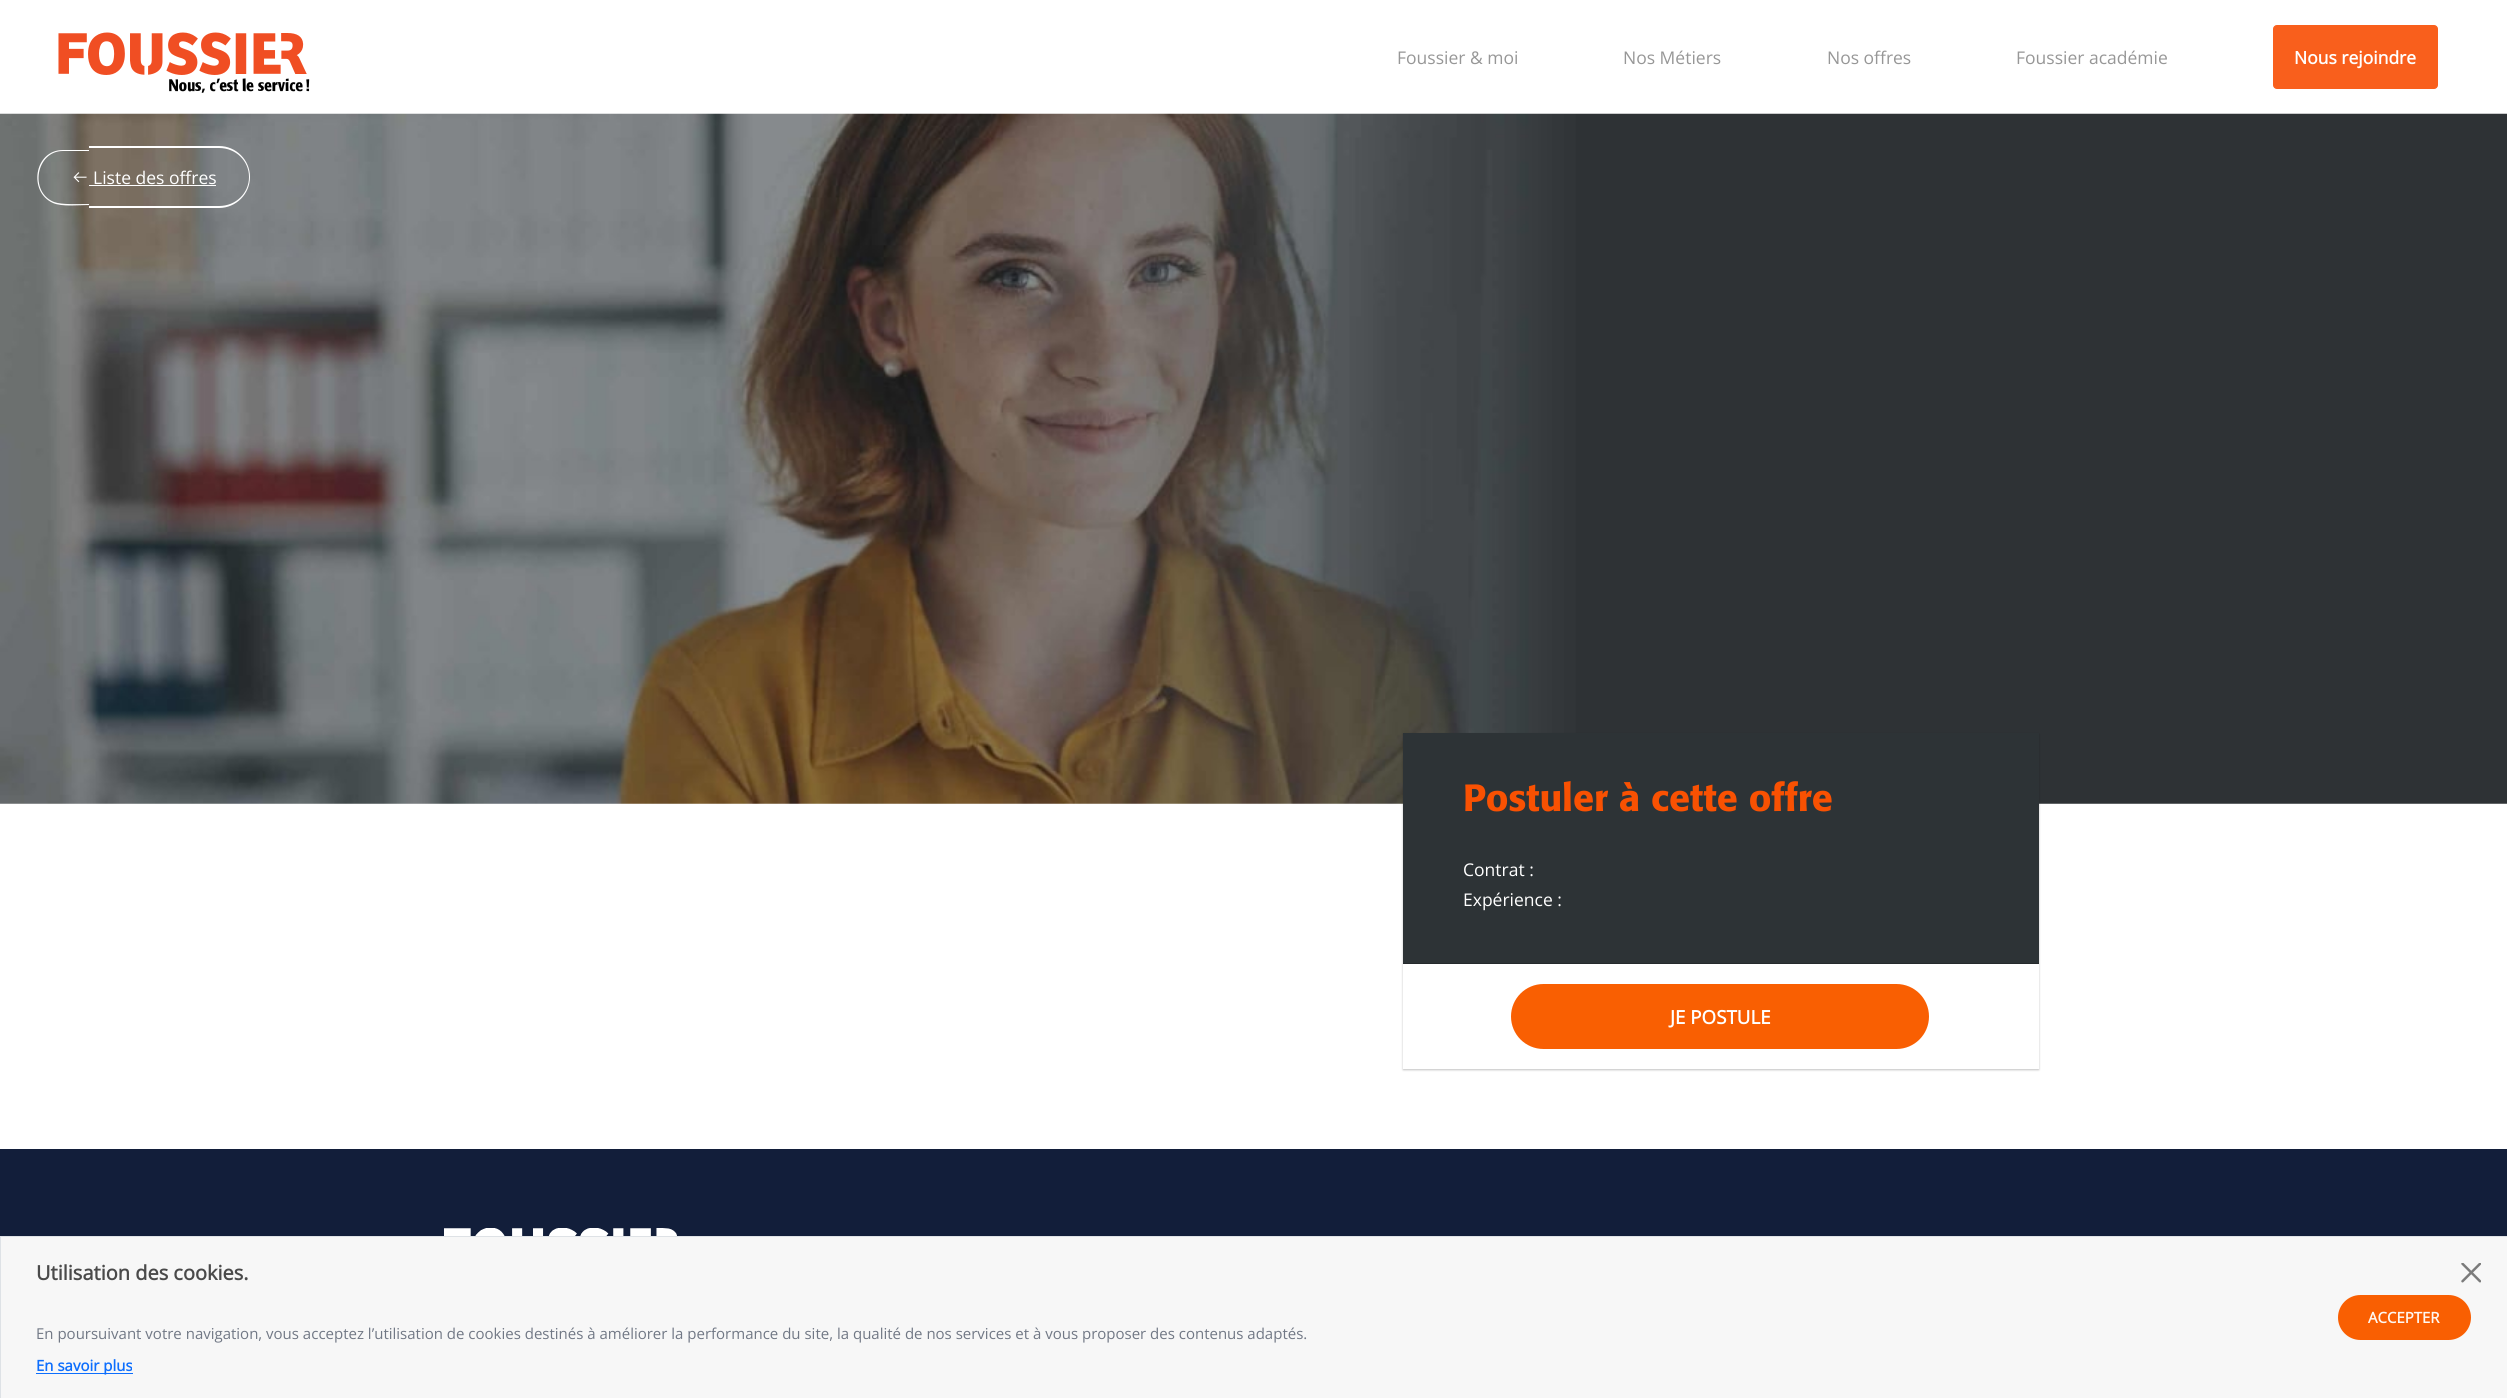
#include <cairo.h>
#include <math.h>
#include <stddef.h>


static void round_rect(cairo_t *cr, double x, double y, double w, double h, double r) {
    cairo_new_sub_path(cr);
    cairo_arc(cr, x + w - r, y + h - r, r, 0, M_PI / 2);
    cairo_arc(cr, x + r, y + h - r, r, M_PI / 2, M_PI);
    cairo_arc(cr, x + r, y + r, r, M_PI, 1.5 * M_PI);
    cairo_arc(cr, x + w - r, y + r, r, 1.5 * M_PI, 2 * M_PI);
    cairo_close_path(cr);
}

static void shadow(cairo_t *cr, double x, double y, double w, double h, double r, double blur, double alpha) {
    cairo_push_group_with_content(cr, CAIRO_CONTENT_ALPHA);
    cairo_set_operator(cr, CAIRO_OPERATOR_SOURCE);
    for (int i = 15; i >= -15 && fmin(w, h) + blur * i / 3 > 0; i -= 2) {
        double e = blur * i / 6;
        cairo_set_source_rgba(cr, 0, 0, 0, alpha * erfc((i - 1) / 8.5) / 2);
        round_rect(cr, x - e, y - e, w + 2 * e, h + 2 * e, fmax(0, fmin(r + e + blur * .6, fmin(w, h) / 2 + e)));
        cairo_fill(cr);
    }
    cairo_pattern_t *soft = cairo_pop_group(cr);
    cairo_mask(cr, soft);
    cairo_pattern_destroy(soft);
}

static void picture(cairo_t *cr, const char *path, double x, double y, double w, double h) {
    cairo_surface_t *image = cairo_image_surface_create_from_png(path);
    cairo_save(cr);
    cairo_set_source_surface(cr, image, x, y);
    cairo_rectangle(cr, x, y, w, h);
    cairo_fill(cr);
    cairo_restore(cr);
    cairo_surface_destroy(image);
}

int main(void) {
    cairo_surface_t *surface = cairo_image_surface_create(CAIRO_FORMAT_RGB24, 2507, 1398);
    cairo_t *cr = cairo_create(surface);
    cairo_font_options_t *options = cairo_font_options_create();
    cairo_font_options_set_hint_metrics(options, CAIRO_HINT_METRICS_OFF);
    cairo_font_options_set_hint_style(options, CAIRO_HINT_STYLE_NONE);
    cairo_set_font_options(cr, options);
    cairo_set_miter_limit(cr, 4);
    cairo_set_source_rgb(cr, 1, 1, 1);
    cairo_paint(cr);
    picture(cr, "img1.png", 58, 32, 249, 43);
    picture(cr, "img2.png", 169, 78, 141, 15);
    cairo_select_font_face(cr, "Open Sans", CAIRO_FONT_SLANT_NORMAL, CAIRO_FONT_WEIGHT_NORMAL);
    cairo_set_font_size(cr, 17.5);
    cairo_set_source_rgb(cr, 0.592, 0.592, 0.592);
    cairo_move_to(cr, 1397, 64);
    cairo_show_text(cr, "Foussier & moi");
    cairo_move_to(cr, 1623, 64);
    cairo_show_text(cr, "Nos Métiers");
    cairo_move_to(cr, 1827, 64);
    cairo_show_text(cr, "Nos offres");
    cairo_move_to(cr, 2016, 64);
    cairo_show_text(cr, "Foussier académie");
    cairo_set_source_rgb(cr, 0.973, 0.373, 0.11);
    round_rect(cr, 2273.5, 25.5, 164, 63, 3.5);
    cairo_fill_preserve(cr);
    cairo_set_line_width(cr, 1);
    cairo_stroke(cr);
    cairo_select_font_face(cr, "Open Sans", CAIRO_FONT_SLANT_NORMAL, CAIRO_FONT_WEIGHT_BOLD);
    cairo_set_source_rgb(cr, 1, 1, 1);
    cairo_move_to(cr, 2294, 64);
    cairo_show_text(cr, "Nous rejoindre");
    picture(cr, "img4.png", 0, 113, 2507, 691);
    cairo_set_fill_rule(cr, CAIRO_FILL_RULE_EVEN_ODD);
    cairo_new_path(cr);
    cairo_move_to(cr, 63, 150);
    cairo_line_to(cr, 89, 150);
    cairo_line_to(cr, 89, 205);
    cairo_curve_to(cr, 79, 205, 62, 207, 53, 203);
    cairo_curve_to(cr, 28, 192, 34, 150, 63, 150);
    cairo_close_path(cr);
    cairo_move_to(cr, 63, 151);
    cairo_line_to(cr, 89, 151);
    cairo_line_to(cr, 89, 204);
    cairo_curve_to(cr, 80, 204, 62, 205, 54, 202);
    cairo_curve_to(cr, 29, 192, 36, 151, 63, 151);
    cairo_close_path(cr);
    cairo_fill(cr);
    cairo_new_path(cr);
    cairo_move_to(cr, 89, 146);
    cairo_line_to(cr, 219, 146);
    cairo_curve_to(cr, 236, 146, 250, 160, 250, 177);
    cairo_curve_to(cr, 250, 194, 236, 208, 219, 208);
    cairo_line_to(cr, 89, 208);
    cairo_close_path(cr);
    cairo_move_to(cr, 89, 148);
    cairo_line_to(cr, 219, 148);
    cairo_curve_to(cr, 236, 148, 249, 161, 249, 177);
    cairo_curve_to(cr, 249, 193, 236, 206, 219, 206);
    cairo_line_to(cr, 89, 206);
    cairo_close_path(cr);
    cairo_fill(cr);
    picture(cr, "img3.png", 73, 172, 14, 11);
    cairo_select_font_face(cr, "Open Sans", CAIRO_FONT_SLANT_NORMAL, CAIRO_FONT_WEIGHT_NORMAL);
    cairo_move_to(cr, 93, 184);
    cairo_show_text(cr, "Liste des offres");
    cairo_rectangle(cr, 89, 185, 127, 1);
    cairo_fill(cr);
    cairo_set_source_rgb(cr, 0, 0, 0);
    shadow(cr, 1403, 734, 636, 336, 0, 1, 0.24);
    cairo_set_source_rgb(cr, 1, 1, 1);
    cairo_rectangle(cr, 1403, 964, 636, 105);
    cairo_fill(cr);
    cairo_set_source_rgb(cr, 0.176, 0.2, 0.212);
    cairo_rectangle(cr, 1403, 733, 636, 230);
    cairo_fill(cr);
    cairo_set_source_rgb(cr, 0.145, 0.165, 0.173);
    cairo_rectangle(cr, 1403, 963, 636, 1);
    cairo_fill(cr);
    cairo_select_font_face(cr, "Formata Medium", CAIRO_FONT_SLANT_NORMAL, CAIRO_FONT_WEIGHT_NORMAL);
    cairo_set_font_size(cr, 37.5);
    cairo_set_source_rgb(cr, 0.973, 0.318, 0.008);
    cairo_move_to(cr, 1463, 811);
    cairo_show_text(cr, "Postuler à cette offre");
    cairo_select_font_face(cr, "Open Sans", CAIRO_FONT_SLANT_NORMAL, CAIRO_FONT_WEIGHT_NORMAL);
    cairo_set_font_size(cr, 17.5);
    cairo_set_source_rgb(cr, 1, 1, 1);
    cairo_move_to(cr, 1463, 876);
    cairo_show_text(cr, "Contrat :");
    cairo_move_to(cr, 1463, 906);
    cairo_show_text(cr, "Expérience :");
    cairo_set_source_rgb(cr, 0.973, 0.373, 0.008);
    round_rect(cr, 1511, 984, 418, 65, 32.5);
    cairo_fill(cr);
    cairo_select_font_face(cr, "Open Sans", CAIRO_FONT_SLANT_NORMAL, CAIRO_FONT_WEIGHT_BOLD);
    cairo_set_font_size(cr, 18.75);
    cairo_set_source_rgb(cr, 1, 1, 1);
    cairo_move_to(cr, 1670, 1024);
    cairo_show_text(cr, "JE POSTULE");
    cairo_set_source_rgb(cr, 0.071, 0.118, 0.227);
    cairo_rectangle(cr, 0, 1149, 2507, 87);
    cairo_fill(cr);
    picture(cr, "img5.png", 444, 1228, 233, 8);
    cairo_set_source_rgb(cr, 0.965, 0.965, 0.965);
    cairo_rectangle(cr, 0.5, 1236.5, 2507, 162);
    cairo_fill_preserve(cr);
    cairo_set_source_rgb(cr, 0.871, 0.886, 0.902);
    cairo_stroke(cr);
    cairo_set_font_size(cr, 20);
    cairo_set_source_rgb(cr, 0.29, 0.29, 0.29);
    cairo_move_to(cr, 36, 1280);
    cairo_show_text(cr, "Utilisation des cookies.");
    cairo_select_font_face(cr, "Open Sans", CAIRO_FONT_SLANT_NORMAL, CAIRO_FONT_WEIGHT_NORMAL);
    cairo_set_font_size(cr, 15);
    cairo_set_source_rgb(cr, 0.443, 0.471, 0.522);
    cairo_move_to(cr, 36, 1339);
    cairo_show_text(cr, "En poursuivant votre navigation, vous acceptez l’utilisation de cookies destinés à améliorer la performance du site, la qualité de nos services et à vous proposer des contenus adaptés.");
    cairo_set_source_rgb(cr, 0.051, 0.431, 0.992);
    cairo_rectangle(cr, 36, 1373, 97, 1);
    cairo_fill(cr);
    cairo_select_font_face(cr, "Open Sans", CAIRO_FONT_SLANT_NORMAL, CAIRO_FONT_WEIGHT_BOLD);
    cairo_move_to(cr, 36, 1371);
    cairo_show_text(cr, "En savoir plus");
    cairo_set_source_rgb(cr, 0.973, 0.373, 0.008);
    round_rect(cr, 2338, 1295, 133, 45, 22.5);
    cairo_fill(cr);
    cairo_set_source_rgb(cr, 1, 0.969, 0.949);
    cairo_move_to(cr, 2368, 1323);
    cairo_show_text(cr, "ACCEPTER");
    picture(cr, "img6.png", 2461, 1263, 20, 20);
    cairo_surface_write_to_png(surface, "page.png");
    cairo_font_options_destroy(options);
    cairo_destroy(cr);
    cairo_surface_destroy(surface);
    return 0;
}
